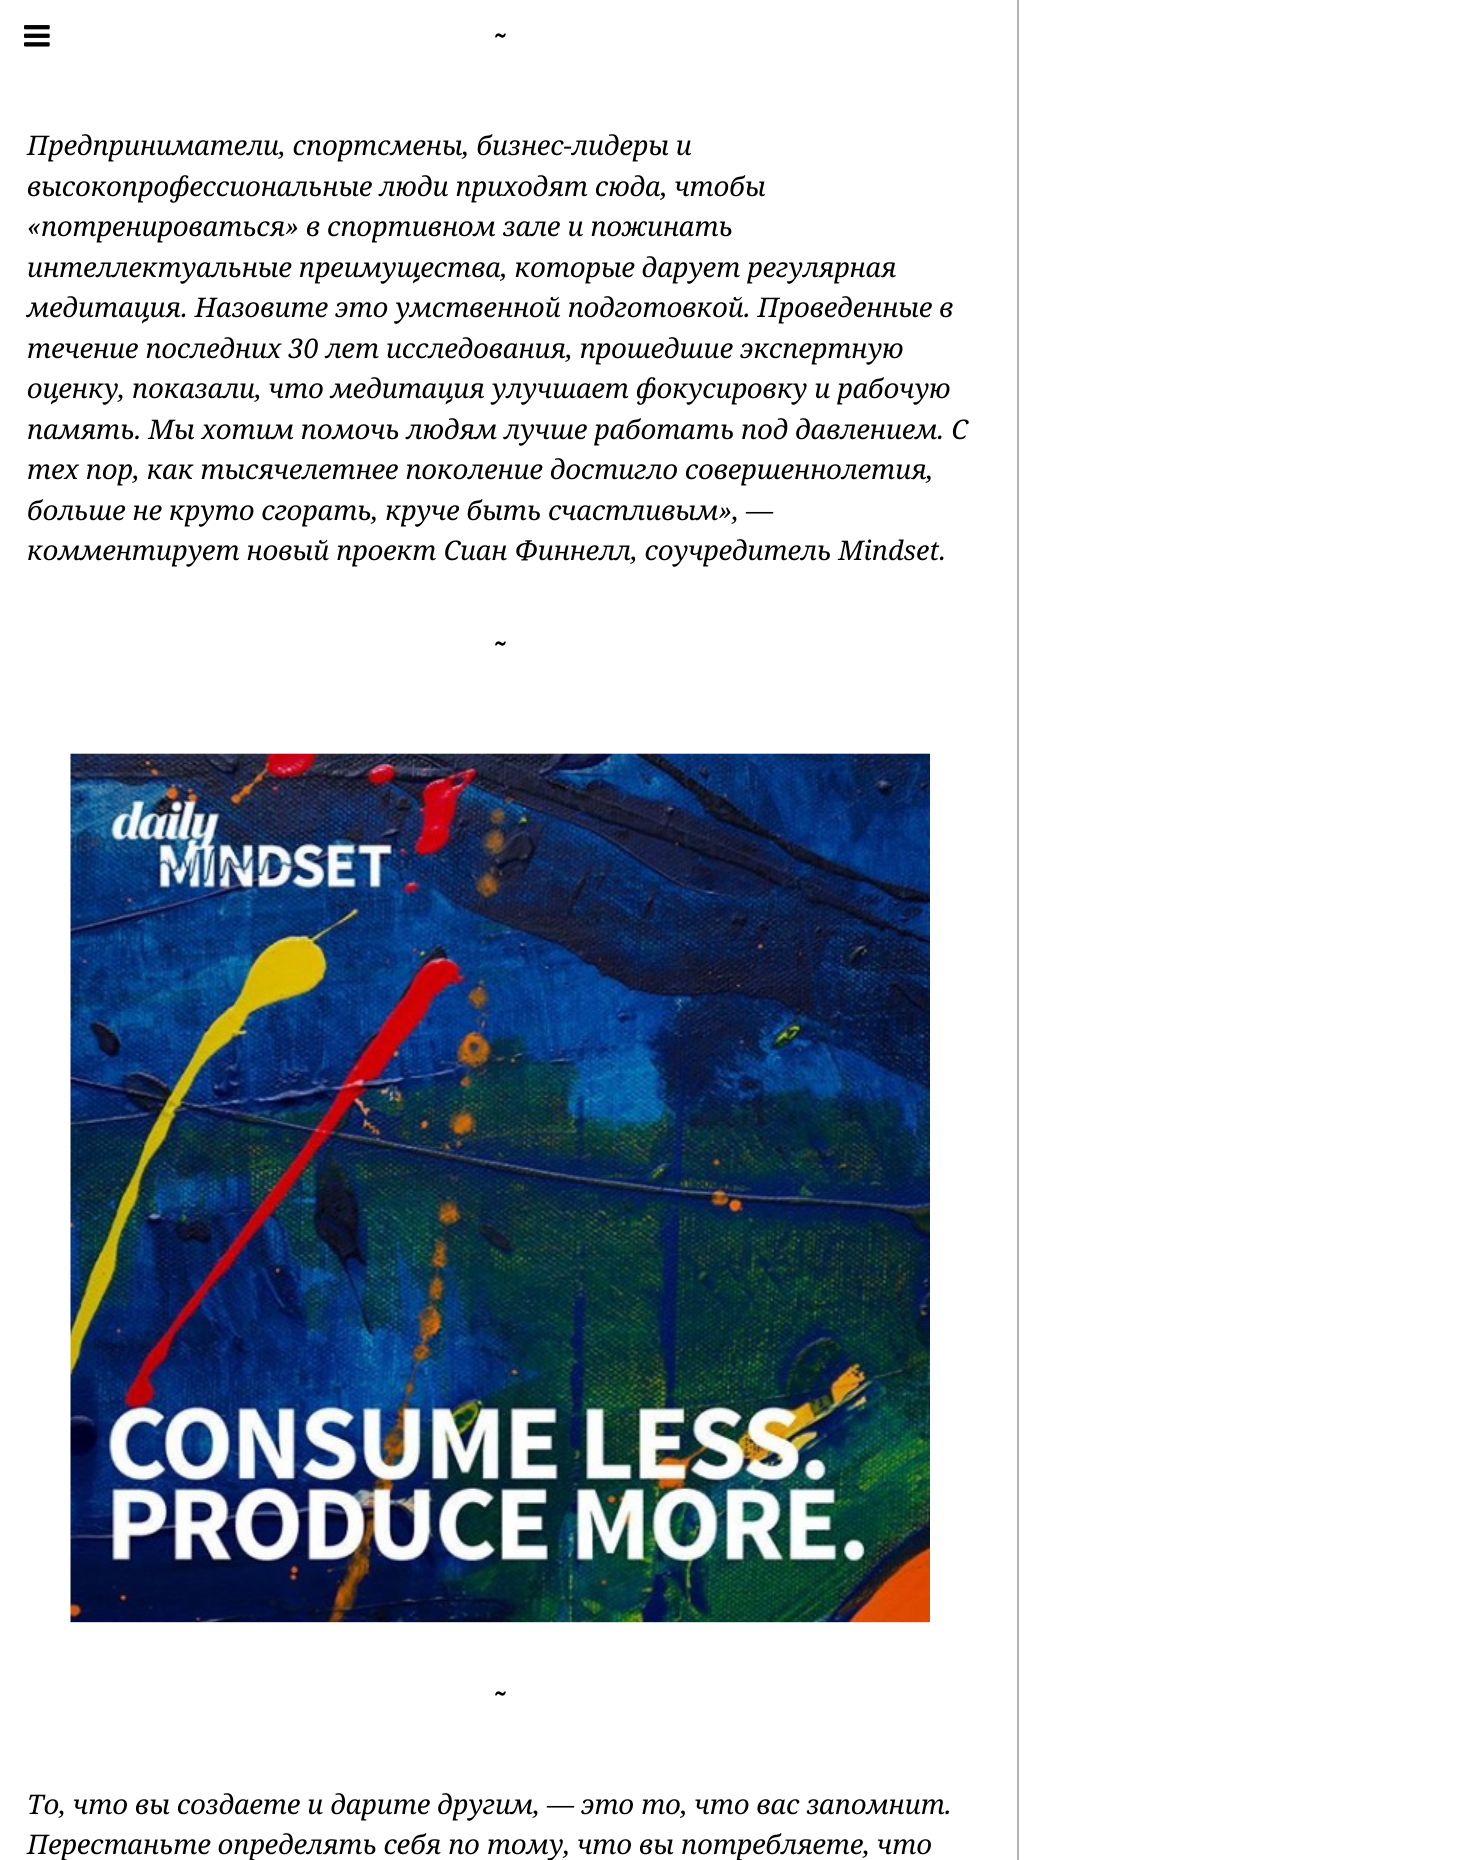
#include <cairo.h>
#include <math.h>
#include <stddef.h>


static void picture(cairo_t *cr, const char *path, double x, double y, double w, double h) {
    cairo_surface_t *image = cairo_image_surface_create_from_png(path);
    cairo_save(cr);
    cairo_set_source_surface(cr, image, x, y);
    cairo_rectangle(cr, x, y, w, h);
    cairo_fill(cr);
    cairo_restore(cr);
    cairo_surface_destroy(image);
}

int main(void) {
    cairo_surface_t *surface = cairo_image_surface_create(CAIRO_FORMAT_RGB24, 1469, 1860);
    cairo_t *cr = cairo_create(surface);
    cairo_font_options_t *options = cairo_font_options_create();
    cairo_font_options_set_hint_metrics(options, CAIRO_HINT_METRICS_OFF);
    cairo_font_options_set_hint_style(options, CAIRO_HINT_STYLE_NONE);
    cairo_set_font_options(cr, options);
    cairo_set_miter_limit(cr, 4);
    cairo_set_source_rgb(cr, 1, 1, 1);
    cairo_paint(cr);
    picture(cr, "img1.png", 24, 25, 26, 22);
    cairo_select_font_face(cr, "Noto Serif", CAIRO_FONT_SLANT_NORMAL, CAIRO_FONT_WEIGHT_BOLD);
    cairo_set_font_size(cr, 27);
    cairo_set_source_rgb(cr, 0, 0, 0);
    cairo_move_to(cr, 494, 54);
    cairo_show_text(cr, "˜");
    cairo_select_font_face(cr, "Noto Serif", CAIRO_FONT_SLANT_ITALIC, CAIRO_FONT_WEIGHT_NORMAL);
    cairo_move_to(cr, 27, 155);
    cairo_show_text(cr, "Предприниматели, спортсмены, бизнес-лидеры и");
    cairo_move_to(cr, 27, 196);
    cairo_show_text(cr, "высокопрофессиональные люди приходят сюда, чтобы");
    cairo_move_to(cr, 27, 236);
    cairo_show_text(cr, "«потренироваться» в спортивном зале и пожинать");
    cairo_move_to(cr, 27, 277);
    cairo_show_text(cr, "интеллектуальные преимущества, которые дарует регулярная");
    cairo_move_to(cr, 27, 317);
    cairo_show_text(cr, "медитация. Назовите это умственной подготовкой. Проведенные в");
    cairo_move_to(cr, 27, 358);
    cairo_show_text(cr, "течение последних 30 лет исследования, прошедшие экспертную");
    cairo_move_to(cr, 27, 398);
    cairo_show_text(cr, "оценку, показали, что медитация улучшает фокусировку и рабочую");
    cairo_move_to(cr, 27, 439);
    cairo_show_text(cr, "память. Мы хотим помочь людям лучше работать под давлением. С");
    cairo_move_to(cr, 27, 479);
    cairo_show_text(cr, "тех пор, как тысячелетнее поколение достигло совершеннолетия,");
    cairo_move_to(cr, 27, 520);
    cairo_show_text(cr, "больше не круто сгорать, круче быть счастливым», —");
    cairo_move_to(cr, 27, 560);
    cairo_show_text(cr, "комментирует новый проект Сиан Финнелл, соучредитель Mindset.");
    cairo_select_font_face(cr, "Noto Serif", CAIRO_FONT_SLANT_NORMAL, CAIRO_FONT_WEIGHT_BOLD);
    cairo_move_to(cr, 494, 662);
    cairo_show_text(cr, "˜");
    picture(cr, "img2.png", 70, 753, 860, 870);
    cairo_move_to(cr, 494, 1712);
    cairo_show_text(cr, "˜");
    cairo_select_font_face(cr, "Noto Serif", CAIRO_FONT_SLANT_ITALIC, CAIRO_FONT_WEIGHT_NORMAL);
    cairo_move_to(cr, 27, 1814);
    cairo_show_text(cr, "То, что вы создаете и дарите другим, — это то, что вас запомнит.");
    cairo_move_to(cr, 27, 1854);
    cairo_show_text(cr, "Перестаньте определять себя по тому, что вы потребляете, что");
    cairo_set_source_rgb(cr, 0.702, 0.702, 0.702);
    cairo_rectangle(cr, 1017, 0, 2, 1860);
    cairo_fill(cr);
    cairo_surface_write_to_png(surface, "page.png");
    cairo_font_options_destroy(options);
    cairo_destroy(cr);
    cairo_surface_destroy(surface);
    return 0;
}
